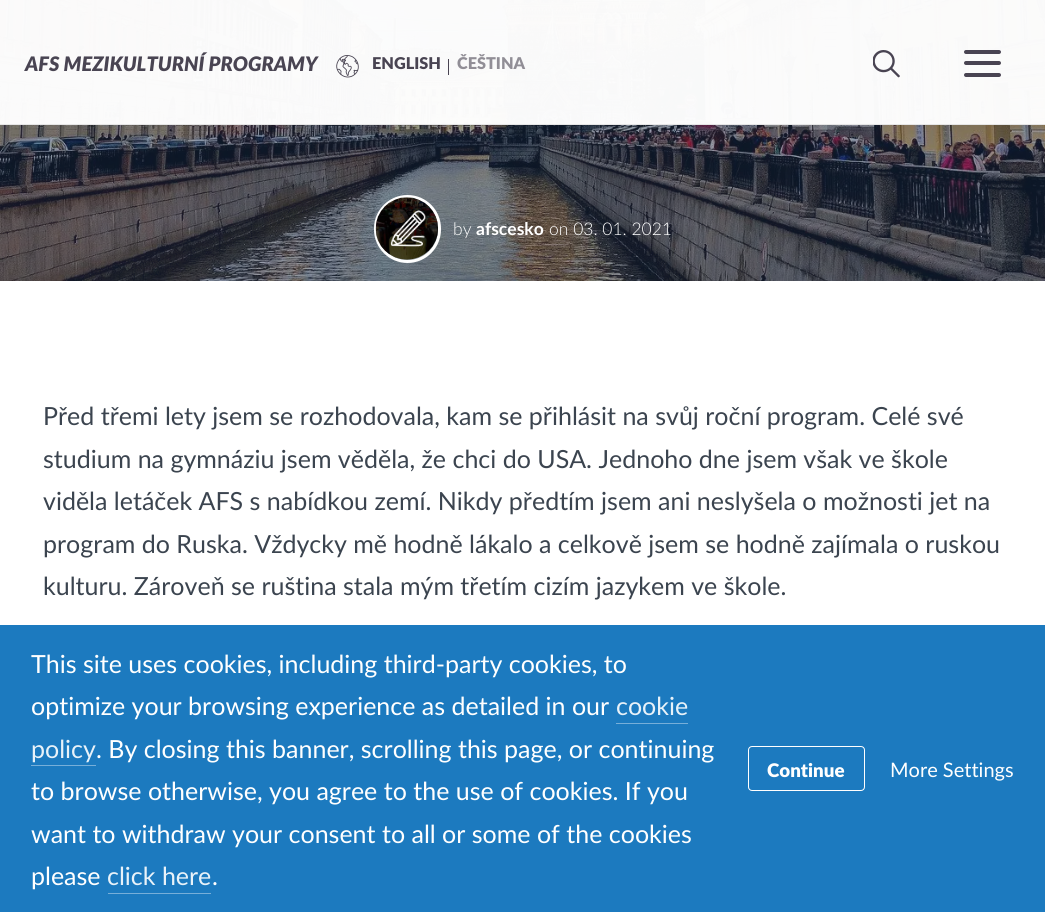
#include <cairo.h>
#include <math.h>
#include <stddef.h>


static void round_rect(cairo_t *cr, double x, double y, double w, double h, double r) {
    cairo_new_sub_path(cr);
    cairo_arc(cr, x + w - r, y + h - r, r, 0, M_PI / 2);
    cairo_arc(cr, x + r, y + h - r, r, M_PI / 2, M_PI);
    cairo_arc(cr, x + r, y + r, r, M_PI, 1.5 * M_PI);
    cairo_arc(cr, x + w - r, y + r, r, 1.5 * M_PI, 2 * M_PI);
    cairo_close_path(cr);
}

static void picture(cairo_t *cr, const char *path, double x, double y, double w, double h) {
    cairo_surface_t *image = cairo_image_surface_create_from_png(path);
    cairo_save(cr);
    cairo_set_source_surface(cr, image, x, y);
    cairo_rectangle(cr, x, y, w, h);
    cairo_fill(cr);
    cairo_restore(cr);
    cairo_surface_destroy(image);
}

int main(void) {
    cairo_surface_t *surface = cairo_image_surface_create(CAIRO_FORMAT_RGB24, 1045, 912);
    cairo_t *cr = cairo_create(surface);
    cairo_font_options_t *options = cairo_font_options_create();
    cairo_font_options_set_hint_metrics(options, CAIRO_HINT_METRICS_OFF);
    cairo_font_options_set_hint_style(options, CAIRO_HINT_STYLE_NONE);
    cairo_set_font_options(cr, options);
    cairo_set_miter_limit(cr, 4);
    cairo_set_source_rgb(cr, 1, 1, 1);
    cairo_paint(cr);
    picture(cr, "img3.png", 0, 0, 1045, 281);
    cairo_set_source_rgba(cr, 1, 1, 1, 0.97);
    cairo_rectangle(cr, 0, 0, 1045, 124);
    cairo_fill(cr);
    cairo_select_font_face(cr, "Lato Black", CAIRO_FONT_SLANT_ITALIC, CAIRO_FONT_WEIGHT_NORMAL);
    cairo_set_font_size(cr, 20);
    cairo_set_source_rgb(cr, 0.286, 0.267, 0.322);
    cairo_move_to(cr, 25, 71);
    cairo_show_text(cr, "AFS MEZIKULTURNÍ PROGRAMY");
    picture(cr, "img1.png", 336, 55, 23, 23);
    cairo_select_font_face(cr, "Lato Black", CAIRO_FONT_SLANT_NORMAL, CAIRO_FONT_WEIGHT_NORMAL);
    cairo_set_font_size(cr, 16.25);
    cairo_move_to(cr, 372, 69);
    cairo_show_text(cr, "ENGLISH");
    cairo_rectangle(cr, 448, 59, 1, 16);
    cairo_fill(cr);
    cairo_set_source_rgb(cr, 0.569, 0.557, 0.588);
    cairo_move_to(cr, 457, 69);
    cairo_show_text(cr, "ČEŠTINA");
    picture(cr, "img2.png", 873, 50, 27, 28);
    cairo_set_source_rgb(cr, 0.286, 0.267, 0.322);
    round_rect(cr, 964, 61, 37, 4, 2);
    cairo_fill(cr);
    round_rect(cr, 964, 50, 37, 4, 2);
    cairo_fill(cr);
    round_rect(cr, 964, 73, 37, 4, 2);
    cairo_fill(cr);
    cairo_set_source_rgb(cr, 0.902, 0.902, 0.902);
    cairo_rectangle(cr, 0, 124, 1045, 1);
    cairo_fill(cr);
    round_rect(cr, 375.5, 196.5, 64, 65, 32);
    cairo_set_source_rgb(cr, 1, 1, 1);
    cairo_set_line_width(cr, 3);
    cairo_stroke(cr);
    cairo_set_source_rgba(cr, 1, 1, 1, 0.3);
    round_rect(cr, 376, 198, 63, 62, 31);
    cairo_fill(cr);
    picture(cr, "img4.png", 375, 197, 63, 63);
    cairo_select_font_face(cr, "Lato Light", CAIRO_FONT_SLANT_NORMAL, CAIRO_FONT_WEIGHT_NORMAL);
    cairo_set_font_size(cr, 17.5);
    cairo_set_source_rgb(cr, 1, 1, 1);
    cairo_move_to(cr, 453, 235);
    cairo_show_text(cr, "by");
    cairo_select_font_face(cr, "Lato", CAIRO_FONT_SLANT_NORMAL, CAIRO_FONT_WEIGHT_BOLD);
    cairo_move_to(cr, 476, 235);
    cairo_show_text(cr, "afscesko");
    cairo_select_font_face(cr, "Lato Light", CAIRO_FONT_SLANT_NORMAL, CAIRO_FONT_WEIGHT_NORMAL);
    cairo_move_to(cr, 549, 235);
    cairo_show_text(cr, "on 03. 01. 2021");
    cairo_select_font_face(cr, "Lato", CAIRO_FONT_SLANT_NORMAL, CAIRO_FONT_WEIGHT_NORMAL);
    cairo_set_font_size(cr, 25);
    cairo_set_source_rgb(cr, 0.231, 0.267, 0.31);
    cairo_move_to(cr, 43, 425);
    cairo_show_text(cr, "Před třemi lety jsem se rozhodovala, kam se přihlásit na svůj roční program. Celé své");
    cairo_move_to(cr, 43, 468);
    cairo_show_text(cr, "studium na gymnáziu jsem věděla, že chci do USA. Jednoho dne jsem však ve škole");
    cairo_move_to(cr, 43, 510);
    cairo_show_text(cr, "viděla letáček AFS s nabídkou zemí. Nikdy předtím jsem ani neslyšela o možnosti jet na");
    cairo_move_to(cr, 43, 553);
    cairo_show_text(cr, "program do Ruska. Vždycky mě hodně lákalo a celkově jsem se hodně zajímala o ruskou");
    cairo_move_to(cr, 43, 595);
    cairo_show_text(cr, "kulturu. Zároveň se ruština stala mým třetím cizím jazykem ve škole.");
    cairo_set_source_rgb(cr, 0.11, 0.478, 0.749);
    cairo_rectangle(cr, 0, 625, 1045, 287);
    cairo_fill(cr);
    cairo_set_source_rgb(cr, 1, 1, 1);
    cairo_move_to(cr, 31, 673);
    cairo_show_text(cr, "This site uses cookies, including third-party cookies, to");
    cairo_move_to(cr, 31, 715);
    cairo_show_text(cr, "optimize your browsing experience as detailed in our");
    cairo_set_source_rgb(cr, 0.91, 0.949, 0.976);
    cairo_move_to(cr, 616, 715);
    cairo_show_text(cr, "cookie");
    cairo_set_source_rgb(cr, 0.467, 0.686, 0.851);
    cairo_rectangle(cr, 616, 723, 72, 1);
    cairo_fill(cr);
    cairo_set_source_rgb(cr, 0.91, 0.949, 0.976);
    cairo_move_to(cr, 31, 758);
    cairo_show_text(cr, "policy");
    cairo_set_source_rgb(cr, 0.467, 0.686, 0.851);
    cairo_rectangle(cr, 31, 765, 65, 1);
    cairo_fill(cr);
    cairo_set_source_rgb(cr, 1, 1, 1);
    cairo_move_to(cr, 96, 758);
    cairo_show_text(cr, ". By closing this banner, scrolling this page, or continuing");
    cairo_move_to(cr, 31, 800);
    cairo_show_text(cr, "to browse otherwise, you agree to the use of cookies. If you");
    cairo_move_to(cr, 31, 843);
    cairo_show_text(cr, "want to withdraw your consent to all or some of the cookies");
    cairo_move_to(cr, 31, 885);
    cairo_show_text(cr, "please");
    cairo_set_source_rgb(cr, 0.91, 0.949, 0.976);
    cairo_move_to(cr, 107, 885);
    cairo_show_text(cr, "click here");
    cairo_set_source_rgb(cr, 0.467, 0.686, 0.851);
    cairo_rectangle(cr, 108, 893, 103, 1);
    cairo_fill(cr);
    cairo_set_source_rgb(cr, 1, 1, 1);
    cairo_move_to(cr, 212, 885);
    cairo_show_text(cr, ".");
    round_rect(cr, 748.5, 746.5, 116, 44, 3.5);
    cairo_set_line_width(cr, 1);
    cairo_stroke(cr);
    cairo_select_font_face(cr, "Lato Black", CAIRO_FONT_SLANT_NORMAL, CAIRO_FONT_WEIGHT_NORMAL);
    cairo_set_font_size(cr, 18.75);
    cairo_move_to(cr, 767, 777);
    cairo_show_text(cr, "Continue");
    cairo_select_font_face(cr, "Lato", CAIRO_FONT_SLANT_NORMAL, CAIRO_FONT_WEIGHT_NORMAL);
    cairo_set_font_size(cr, 20);
    cairo_move_to(cr, 890, 777);
    cairo_show_text(cr, "More Settings");
    cairo_surface_write_to_png(surface, "page.png");
    cairo_font_options_destroy(options);
    cairo_destroy(cr);
    cairo_surface_destroy(surface);
    return 0;
}
